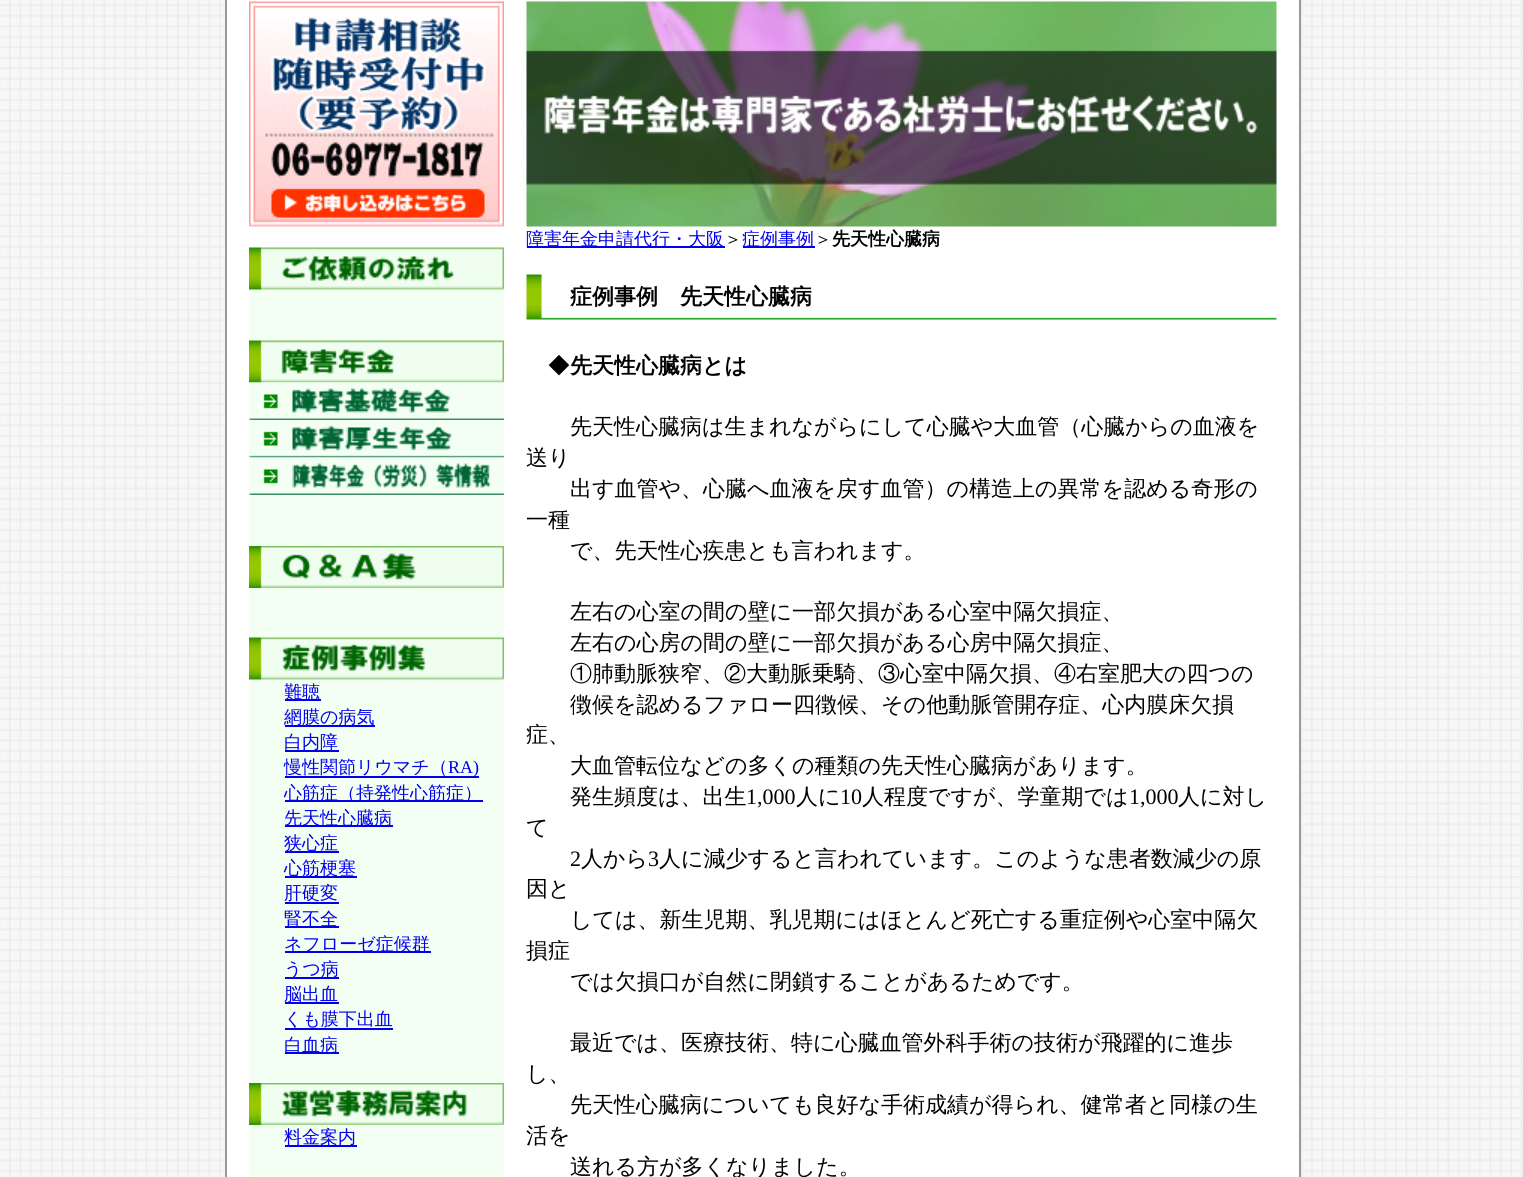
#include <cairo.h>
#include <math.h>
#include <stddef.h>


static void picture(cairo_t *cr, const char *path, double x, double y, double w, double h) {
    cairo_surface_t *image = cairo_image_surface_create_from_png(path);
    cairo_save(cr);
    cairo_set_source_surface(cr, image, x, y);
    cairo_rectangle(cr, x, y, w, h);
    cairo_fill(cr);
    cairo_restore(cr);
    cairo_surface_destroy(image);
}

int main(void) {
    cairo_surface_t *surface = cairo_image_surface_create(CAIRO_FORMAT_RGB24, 1523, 1177);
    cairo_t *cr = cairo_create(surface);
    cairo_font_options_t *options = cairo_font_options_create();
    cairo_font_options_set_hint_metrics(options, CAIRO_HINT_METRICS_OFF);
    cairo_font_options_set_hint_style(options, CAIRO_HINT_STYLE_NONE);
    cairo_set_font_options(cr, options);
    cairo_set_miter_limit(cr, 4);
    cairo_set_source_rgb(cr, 1, 1, 1);
    cairo_paint(cr);
    picture(cr, "img1.png", 0, 0, 1523, 1177);
    cairo_set_source_rgb(cr, 0.6, 0.6, 0.6);
    cairo_rectangle(cr, 225, 0, 1076, 1177);
    cairo_fill(cr);
    cairo_set_source_rgb(cr, 1, 1, 1);
    cairo_rectangle(cr, 227, 0, 1072, 1177);
    cairo_fill(cr);
    picture(cr, "img2.png", 526, 1, 751, 226);
    cairo_set_source_rgb(cr, 0, 0, 0.933);
    cairo_rectangle(cr, 527, 246, 198, 2);
    cairo_fill(cr);
    cairo_select_font_face(cr, "WenQuanYi Zen Hei Medium", CAIRO_FONT_SLANT_NORMAL, CAIRO_FONT_WEIGHT_NORMAL);
    cairo_set_font_size(cr, 18);
    cairo_move_to(cr, 526, 245);
    cairo_show_text(cr, "障害年金申請代行・大阪");
    cairo_set_source_rgb(cr, 0, 0, 0);
    cairo_move_to(cr, 724, 245);
    cairo_show_text(cr, "＞");
    cairo_set_source_rgb(cr, 0, 0, 0.933);
    cairo_rectangle(cr, 743, 246, 72, 2);
    cairo_fill(cr);
    cairo_move_to(cr, 742, 245);
    cairo_show_text(cr, "症例事例");
    cairo_set_source_rgb(cr, 0, 0, 0);
    cairo_move_to(cr, 814, 245);
    cairo_show_text(cr, "＞");
    cairo_select_font_face(cr, "WenQuanYi Zen Hei", CAIRO_FONT_SLANT_NORMAL, CAIRO_FONT_WEIGHT_BOLD);
    cairo_move_to(cr, 832, 245);
    cairo_show_text(cr, "先天性心臓病");
    picture(cr, "img3.png", 249, 1, 255, 226);
    cairo_set_source_rgb(cr, 0.957, 1, 0.957);
    cairo_rectangle(cr, 249, 247, 255, 930);
    cairo_fill(cr);
    picture(cr, "img4.png", 249, 247, 255, 43);
    picture(cr, "img5.png", 249, 340, 255, 43);
    picture(cr, "img6.png", 249, 382, 255, 38);
    picture(cr, "img7.png", 249, 425, 255, 33);
    picture(cr, "img8.png", 249, 457, 255, 38);
    picture(cr, "img9.png", 249, 546, 255, 42);
    picture(cr, "img10.png", 249, 637, 255, 43);
    cairo_set_source_rgb(cr, 0, 0, 0.933);
    cairo_rectangle(cr, 285, 699, 36, 2);
    cairo_fill(cr);
    cairo_select_font_face(cr, "WenQuanYi Zen Hei Medium", CAIRO_FONT_SLANT_NORMAL, CAIRO_FONT_WEIGHT_NORMAL);
    cairo_move_to(cr, 284, 698);
    cairo_show_text(cr, "難聴");
    cairo_rectangle(cr, 285, 725, 90, 2);
    cairo_fill(cr);
    cairo_move_to(cr, 284, 723);
    cairo_show_text(cr, "網膜の病気");
    cairo_rectangle(cr, 285, 750, 54, 2);
    cairo_fill(cr);
    cairo_move_to(cr, 284, 748);
    cairo_show_text(cr, "白内障");
    cairo_rectangle(cr, 285, 776, 194, 2);
    cairo_fill(cr);
    cairo_move_to(cr, 284, 773);
    cairo_show_text(cr, "慢性関節リウマチ（");
    cairo_select_font_face(cr, "Liberation Serif", CAIRO_FONT_SLANT_NORMAL, CAIRO_FONT_WEIGHT_NORMAL);
    cairo_move_to(cr, 448, 773);
    cairo_show_text(cr, "RA)");
    cairo_rectangle(cr, 285, 800, 198, 2);
    cairo_fill(cr);
    cairo_select_font_face(cr, "WenQuanYi Zen Hei Medium", CAIRO_FONT_SLANT_NORMAL, CAIRO_FONT_WEIGHT_NORMAL);
    cairo_move_to(cr, 284, 799);
    cairo_show_text(cr, "心筋症（持発性心筋症）");
    cairo_rectangle(cr, 285, 825, 108, 2);
    cairo_fill(cr);
    cairo_move_to(cr, 284, 824);
    cairo_show_text(cr, "先天性心臓病");
    cairo_rectangle(cr, 285, 851, 54, 2);
    cairo_fill(cr);
    cairo_move_to(cr, 284, 849);
    cairo_show_text(cr, "狭心症");
    cairo_rectangle(cr, 285, 876, 72, 2);
    cairo_fill(cr);
    cairo_move_to(cr, 284, 874);
    cairo_show_text(cr, "心筋梗塞");
    cairo_move_to(cr, 284, 899);
    cairo_show_text(cr, "肝硬変");
    cairo_rectangle(cr, 285, 902, 54, 2);
    cairo_fill(cr);
    cairo_rectangle(cr, 285, 926, 54, 2);
    cairo_fill(cr);
    cairo_move_to(cr, 284, 925);
    cairo_show_text(cr, "腎不全");
    cairo_rectangle(cr, 285, 951, 146, 2);
    cairo_fill(cr);
    cairo_move_to(cr, 284, 950);
    cairo_show_text(cr, "ネフローゼ症候群");
    cairo_rectangle(cr, 285, 977, 54, 2);
    cairo_fill(cr);
    cairo_move_to(cr, 284, 975);
    cairo_show_text(cr, "うつ病");
    cairo_rectangle(cr, 285, 1002, 54, 2);
    cairo_fill(cr);
    cairo_move_to(cr, 284, 1000);
    cairo_show_text(cr, "脳出血");
    cairo_move_to(cr, 284, 1025);
    cairo_show_text(cr, "くも膜下出血");
    cairo_rectangle(cr, 285, 1028, 108, 2);
    cairo_fill(cr);
    cairo_rectangle(cr, 285, 1052, 54, 2);
    cairo_fill(cr);
    cairo_move_to(cr, 284, 1051);
    cairo_show_text(cr, "白血病");
    picture(cr, "img11.png", 249, 1083, 255, 42);
    cairo_rectangle(cr, 285, 1145, 72, 2);
    cairo_fill(cr);
    cairo_move_to(cr, 284, 1143);
    cairo_show_text(cr, "料金案内");
    picture(cr, "img12.png", 526, 274, 751, 46);
    cairo_select_font_face(cr, "WenQuanYi Zen Hei", CAIRO_FONT_SLANT_NORMAL, CAIRO_FONT_WEIGHT_BOLD);
    cairo_set_font_size(cr, 22);
    cairo_set_source_rgb(cr, 0, 0, 0);
    cairo_move_to(cr, 570, 304);
    cairo_show_text(cr, "症例事例　先天性心臓病");
    cairo_select_font_face(cr, "WenQuanYi Zen Hei Medium", CAIRO_FONT_SLANT_NORMAL, CAIRO_FONT_WEIGHT_NORMAL);
    cairo_move_to(cr, 548, 373);
    cairo_show_text(cr, "◆");
    cairo_select_font_face(cr, "WenQuanYi Zen Hei", CAIRO_FONT_SLANT_NORMAL, CAIRO_FONT_WEIGHT_BOLD);
    cairo_move_to(cr, 570, 373);
    cairo_show_text(cr, "先天性心臓病とは");
    cairo_select_font_face(cr, "WenQuanYi Zen Hei Medium", CAIRO_FONT_SLANT_NORMAL, CAIRO_FONT_WEIGHT_NORMAL);
    cairo_move_to(cr, 570, 434);
    cairo_show_text(cr, "先天性心臓病は生まれながらにして心臓や大血管（心臓からの血液を");
    cairo_move_to(cr, 526, 465);
    cairo_show_text(cr, "送り");
    cairo_move_to(cr, 570, 496);
    cairo_show_text(cr, "出す血管や、心臓へ血液を戻す血管）の構造上の異常を認める奇形の");
    cairo_move_to(cr, 526, 527);
    cairo_show_text(cr, "一種");
    cairo_move_to(cr, 570, 558);
    cairo_show_text(cr, "で、先天性心疾患とも言われます。");
    cairo_move_to(cr, 570, 619);
    cairo_show_text(cr, "左右の心室の間の壁に一部欠損がある心室中隔欠損症、");
    cairo_move_to(cr, 570, 650);
    cairo_show_text(cr, "左右の心房の間の壁に一部欠損がある心房中隔欠損症、");
    cairo_move_to(cr, 570, 681);
    cairo_show_text(cr, "①肺動脈狭窄、②大動脈乗騎、③心室中隔欠損、④右室肥大の四つの");
    cairo_move_to(cr, 570, 712);
    cairo_show_text(cr, "徴候を認めるファロー四徴候、その他動脈管開存症、心内膜床欠損");
    cairo_move_to(cr, 526, 742);
    cairo_show_text(cr, "症、");
    cairo_move_to(cr, 570, 773);
    cairo_show_text(cr, "大血管転位などの多くの種類の先天性心臓病があります。");
    cairo_move_to(cr, 570, 804);
    cairo_show_text(cr, "発生頻度は、出生");
    cairo_select_font_face(cr, "Liberation Serif", CAIRO_FONT_SLANT_NORMAL, CAIRO_FONT_WEIGHT_NORMAL);
    cairo_move_to(cr, 746, 804);
    cairo_show_text(cr, "1,000");
    cairo_select_font_face(cr, "WenQuanYi Zen Hei Medium", CAIRO_FONT_SLANT_NORMAL, CAIRO_FONT_WEIGHT_NORMAL);
    cairo_move_to(cr, 796, 804);
    cairo_show_text(cr, "人に");
    cairo_select_font_face(cr, "Liberation Serif", CAIRO_FONT_SLANT_NORMAL, CAIRO_FONT_WEIGHT_NORMAL);
    cairo_move_to(cr, 840, 804);
    cairo_show_text(cr, "10");
    cairo_select_font_face(cr, "WenQuanYi Zen Hei Medium", CAIRO_FONT_SLANT_NORMAL, CAIRO_FONT_WEIGHT_NORMAL);
    cairo_move_to(cr, 862, 804);
    cairo_show_text(cr, "人程度ですが、学童期では");
    cairo_select_font_face(cr, "Liberation Serif", CAIRO_FONT_SLANT_NORMAL, CAIRO_FONT_WEIGHT_NORMAL);
    cairo_move_to(cr, 1129, 804);
    cairo_show_text(cr, "1,000");
    cairo_select_font_face(cr, "WenQuanYi Zen Hei Medium", CAIRO_FONT_SLANT_NORMAL, CAIRO_FONT_WEIGHT_NORMAL);
    cairo_move_to(cr, 1178, 804);
    cairo_show_text(cr, "人に対し");
    cairo_move_to(cr, 526, 835);
    cairo_show_text(cr, "て");
    cairo_select_font_face(cr, "Liberation Serif", CAIRO_FONT_SLANT_NORMAL, CAIRO_FONT_WEIGHT_NORMAL);
    cairo_move_to(cr, 570, 866);
    cairo_show_text(cr, "2");
    cairo_select_font_face(cr, "WenQuanYi Zen Hei Medium", CAIRO_FONT_SLANT_NORMAL, CAIRO_FONT_WEIGHT_NORMAL);
    cairo_move_to(cr, 581, 866);
    cairo_show_text(cr, "人から");
    cairo_select_font_face(cr, "Liberation Serif", CAIRO_FONT_SLANT_NORMAL, CAIRO_FONT_WEIGHT_NORMAL);
    cairo_move_to(cr, 648, 866);
    cairo_show_text(cr, "3");
    cairo_select_font_face(cr, "WenQuanYi Zen Hei Medium", CAIRO_FONT_SLANT_NORMAL, CAIRO_FONT_WEIGHT_NORMAL);
    cairo_move_to(cr, 659, 866);
    cairo_show_text(cr, "人に減少すると言われています。このような患者数減少の原");
    cairo_move_to(cr, 526, 896);
    cairo_show_text(cr, "因と");
    cairo_move_to(cr, 570, 927);
    cairo_show_text(cr, "しては、新生児期、乳児期にはほとんど死亡する重症例や心室中隔欠");
    cairo_move_to(cr, 526, 958);
    cairo_show_text(cr, "損症");
    cairo_move_to(cr, 570, 989);
    cairo_show_text(cr, "では欠損口が自然に閉鎖することがあるためです。");
    cairo_move_to(cr, 570, 1050);
    cairo_show_text(cr, "最近では、医療技術、特に心臓血管外科手術の技術が飛躍的に進歩");
    cairo_move_to(cr, 526, 1081);
    cairo_show_text(cr, "し、");
    cairo_move_to(cr, 570, 1112);
    cairo_show_text(cr, "先天性心臓病についても良好な手術成績が得られ、健常者と同様の生");
    cairo_move_to(cr, 526, 1143);
    cairo_show_text(cr, "活を");
    cairo_move_to(cr, 570, 1174);
    cairo_show_text(cr, "送れる方が多くなりました。");
    cairo_surface_write_to_png(surface, "page.png");
    cairo_font_options_destroy(options);
    cairo_destroy(cr);
    cairo_surface_destroy(surface);
    return 0;
}
